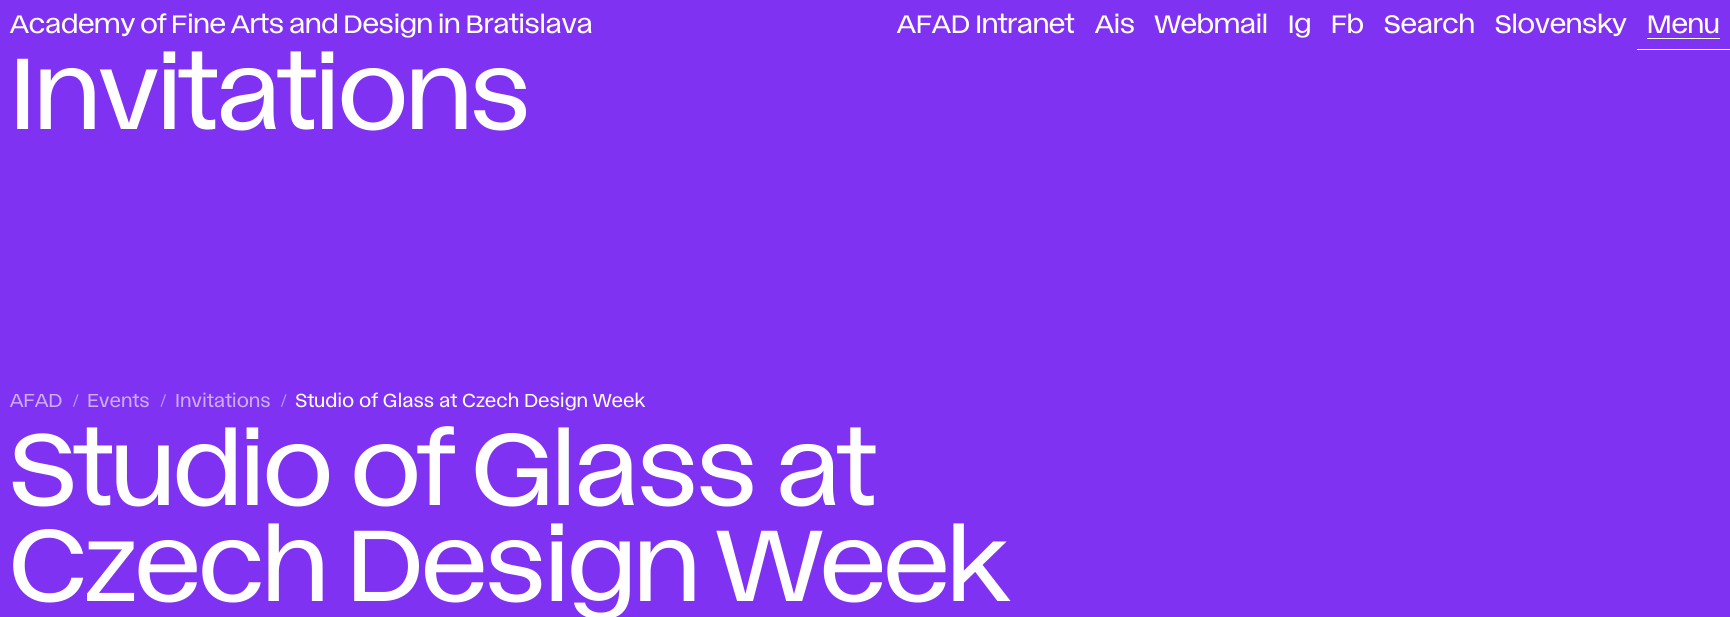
#include <cairo.h>
#include <math.h>
#include <stddef.h>


static void spaced_text(cairo_t *cr, double x, double y, const char *s, double letter, double word) {
    cairo_move_to(cr, x, y);
    while (*s) {
        char ch[5] = {0};
        int n = 0;
        do ch[n++] = *s++; while ((*s & 0xC0) == 0x80);
        cairo_show_text(cr, ch);
        cairo_rel_move_to(cr, letter + word * (*ch == ' '), 0);
    }
}

int main(void) {
    cairo_surface_t *surface = cairo_image_surface_create(CAIRO_FORMAT_RGB24, 1730, 617);
    cairo_t *cr = cairo_create(surface);
    cairo_font_options_t *options = cairo_font_options_create();
    cairo_font_options_set_hint_metrics(options, CAIRO_HINT_METRICS_OFF);
    cairo_font_options_set_hint_style(options, CAIRO_HINT_STYLE_NONE);
    cairo_set_font_options(cr, options);
    cairo_set_miter_limit(cr, 4);
    cairo_set_source_rgb(cr, 0.502, 0.196, 0.953);
    cairo_paint(cr);
    cairo_select_font_face(cr, "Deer", CAIRO_FONT_SLANT_NORMAL, CAIRO_FONT_WEIGHT_NORMAL);
    cairo_set_font_size(cr, 20);
    cairo_set_source_rgb(cr, 1, 1, 1);
    spaced_text(cr, 10, 33, "Academy of Fine Arts and Design in Bratislava", 0.25, 0);
    spaced_text(cr, 897, 33, "AFAD Intranet", 0.25, 0);
    spaced_text(cr, 1095, 33, "Ais", 0.25, 0);
    spaced_text(cr, 1155, 33, "Webmail", 0.25, 0);
    spaced_text(cr, 1288, 33, "Ig", 0.25, 0);
    spaced_text(cr, 1331, 33, "Fb", 0.25, 0);
    spaced_text(cr, 1384, 33, "Search", 0.25, 0);
    spaced_text(cr, 1495, 33, "Slovensky", 0.25, 0);
    spaced_text(cr, 1647, 33, "Menu", 0.25, 0);
    cairo_rectangle(cr, 1647, 38, 73, 1);
    cairo_fill(cr);
    cairo_rectangle(cr, 1637, 49, 93, 1);
    cairo_fill(cr);
    cairo_set_font_size(cr, 80);
    cairo_move_to(cr, 10, 129);
    cairo_show_text(cr, "Invitations");
    cairo_select_font_face(cr, "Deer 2", CAIRO_FONT_SLANT_NORMAL, CAIRO_FONT_WEIGHT_NORMAL);
    cairo_set_font_size(cr, 14);
    cairo_set_source_rgb(cr, 0.8, 0.678, 0.98);
    cairo_move_to(cr, 10, 407);
    cairo_show_text(cr, "AFAD");
    cairo_set_source_rgb(cr, 0.753, 0.6, 0.976);
    cairo_new_path(cr);
    cairo_move_to(cr, 77.5, 394);
    cairo_line_to(cr, 78.5, 394.5);
    cairo_line_to(cr, 74, 407);
    cairo_line_to(cr, 73, 406.5);
    cairo_close_path(cr);
    cairo_fill(cr);
    cairo_set_source_rgb(cr, 0.8, 0.678, 0.98);
    cairo_move_to(cr, 87, 407);
    cairo_show_text(cr, "Events");
    cairo_set_source_rgb(cr, 0.753, 0.6, 0.976);
    cairo_new_path(cr);
    cairo_move_to(cr, 165, 394);
    cairo_line_to(cr, 166, 394.5);
    cairo_line_to(cr, 161.5, 407);
    cairo_line_to(cr, 160.5, 406.5);
    cairo_close_path(cr);
    cairo_fill(cr);
    cairo_set_source_rgb(cr, 0.8, 0.678, 0.98);
    cairo_move_to(cr, 175, 407);
    cairo_show_text(cr, "Invitations");
    cairo_set_source_rgb(cr, 0.753, 0.6, 0.976);
    cairo_new_path(cr);
    cairo_move_to(cr, 285.5, 394);
    cairo_line_to(cr, 286.5, 394.5);
    cairo_line_to(cr, 282, 407);
    cairo_line_to(cr, 281, 406.5);
    cairo_close_path(cr);
    cairo_fill(cr);
    cairo_set_source_rgb(cr, 1, 1, 1);
    cairo_move_to(cr, 295, 407);
    cairo_show_text(cr, "Studio of Glass at Czech Design Week");
    cairo_select_font_face(cr, "Deer", CAIRO_FONT_SLANT_NORMAL, CAIRO_FONT_WEIGHT_NORMAL);
    cairo_set_font_size(cr, 80);
    cairo_move_to(cr, 10, 505);
    cairo_show_text(cr, "Studio of Glass at");
    cairo_move_to(cr, 10, 601);
    cairo_show_text(cr, "Czech Design Week");
    cairo_surface_write_to_png(surface, "page.png");
    cairo_font_options_destroy(options);
    cairo_destroy(cr);
    cairo_surface_destroy(surface);
    return 0;
}
